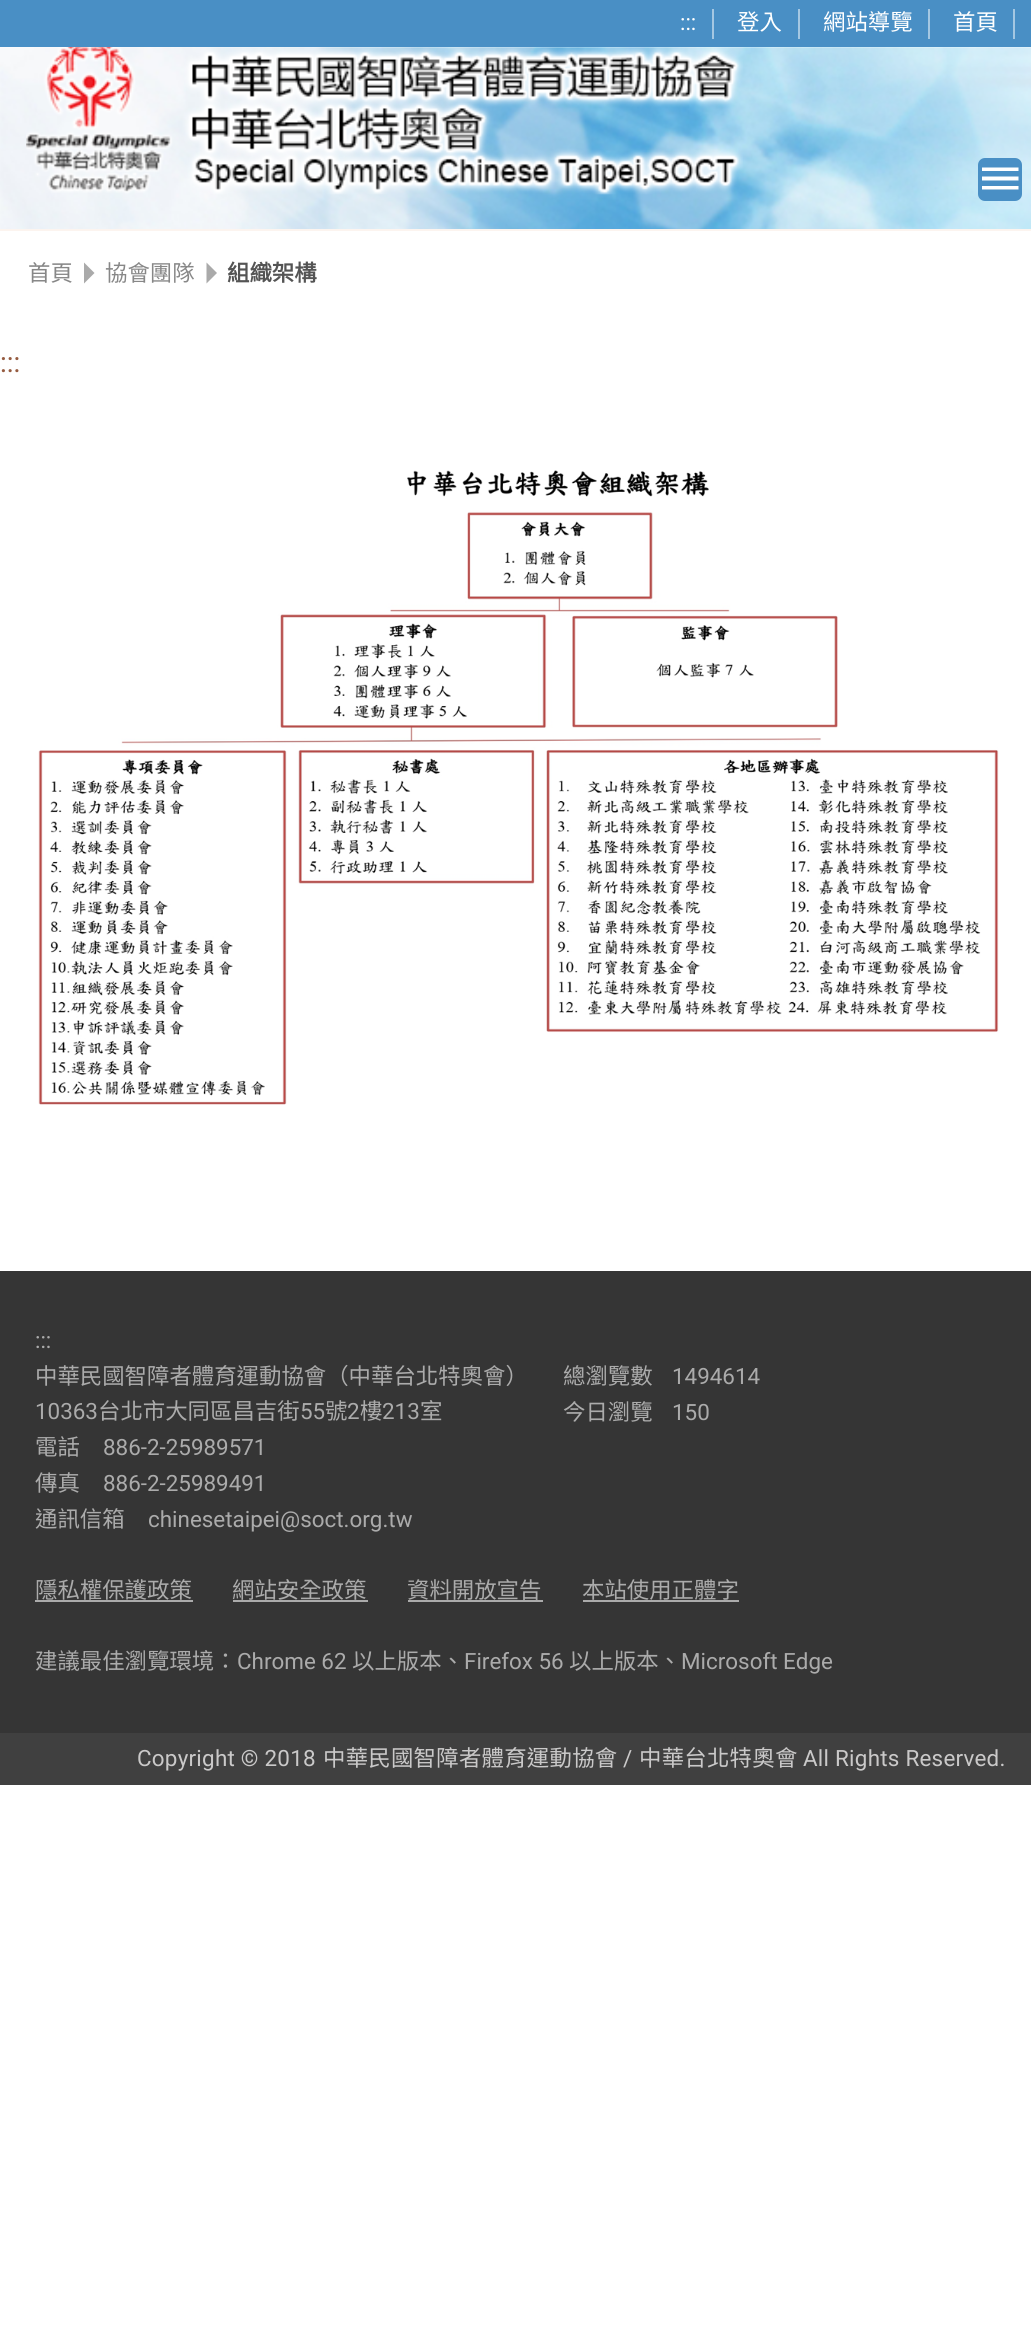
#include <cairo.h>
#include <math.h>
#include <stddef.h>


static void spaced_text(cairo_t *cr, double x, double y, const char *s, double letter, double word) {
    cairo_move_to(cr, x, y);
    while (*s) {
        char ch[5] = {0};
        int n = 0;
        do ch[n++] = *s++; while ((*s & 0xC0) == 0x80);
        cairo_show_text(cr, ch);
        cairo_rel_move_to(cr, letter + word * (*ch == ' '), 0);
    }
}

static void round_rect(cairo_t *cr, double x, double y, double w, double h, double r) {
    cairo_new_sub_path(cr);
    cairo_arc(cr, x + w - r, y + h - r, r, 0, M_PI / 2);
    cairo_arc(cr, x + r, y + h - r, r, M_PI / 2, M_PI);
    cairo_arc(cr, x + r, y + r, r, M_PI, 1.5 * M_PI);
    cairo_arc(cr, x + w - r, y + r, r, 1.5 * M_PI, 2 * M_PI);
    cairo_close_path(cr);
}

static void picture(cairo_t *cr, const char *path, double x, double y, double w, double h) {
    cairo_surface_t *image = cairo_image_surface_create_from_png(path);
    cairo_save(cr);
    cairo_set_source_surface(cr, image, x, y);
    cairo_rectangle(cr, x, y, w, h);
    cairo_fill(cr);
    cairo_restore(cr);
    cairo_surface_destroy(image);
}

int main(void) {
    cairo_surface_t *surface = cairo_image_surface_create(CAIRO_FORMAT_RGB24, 1031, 2328);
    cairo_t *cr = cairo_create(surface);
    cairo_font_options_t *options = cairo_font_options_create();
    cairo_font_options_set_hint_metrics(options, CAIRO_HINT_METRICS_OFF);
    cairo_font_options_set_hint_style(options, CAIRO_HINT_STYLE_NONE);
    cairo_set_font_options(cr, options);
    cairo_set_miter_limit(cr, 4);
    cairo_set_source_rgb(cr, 1, 1, 1);
    cairo_paint(cr);
    cairo_set_source_rgb(cr, 0.286, 0.561, 0.773);
    cairo_rectangle(cr, 0, 0, 1031, 47);
    cairo_fill(cr);
    cairo_select_font_face(cr, "Roboto", CAIRO_FONT_SLANT_NORMAL, CAIRO_FONT_WEIGHT_NORMAL);
    cairo_set_font_size(cr, 22.4);
    cairo_set_source_rgb(cr, 1, 1, 1);
    cairo_move_to(cr, 680, 30);
    cairo_show_text(cr, ":::");
    cairo_set_source_rgb(cr, 0.643, 0.78, 0.886);
    cairo_rectangle(cr, 712, 9, 2, 30);
    cairo_fill(cr);
    cairo_select_font_face(cr, "Noto Sans CJK TC", CAIRO_FONT_SLANT_NORMAL, CAIRO_FONT_WEIGHT_NORMAL);
    cairo_set_source_rgb(cr, 1, 1, 1);
    cairo_move_to(cr, 737, 30);
    cairo_show_text(cr, "登入");
    cairo_set_source_rgb(cr, 0.643, 0.78, 0.886);
    cairo_rectangle(cr, 798, 9, 2, 30);
    cairo_fill(cr);
    cairo_set_source_rgb(cr, 1, 1, 1);
    cairo_move_to(cr, 823, 30);
    cairo_show_text(cr, "網站導覽");
    cairo_set_source_rgb(cr, 0.643, 0.78, 0.886);
    cairo_rectangle(cr, 928, 9, 2, 30);
    cairo_fill(cr);
    cairo_set_source_rgb(cr, 1, 1, 1);
    cairo_move_to(cr, 953, 30);
    cairo_show_text(cr, "首頁");
    cairo_set_source_rgb(cr, 0.643, 0.78, 0.886);
    cairo_rectangle(cr, 1013, 9, 2, 30);
    cairo_fill(cr);
    picture(cr, "img1.png", 0, 47, 1031, 182);
    cairo_set_source_rgb(cr, 0.988, 0.957, 0.937);
    cairo_rectangle(cr, 0, 229, 1031, 2);
    cairo_fill(cr);
    picture(cr, "img2.png", 26, 47, 717, 148);
    cairo_set_source_rgb(cr, 0.286, 0.561, 0.773);
    round_rect(cr, 978, 158, 44, 43, 7);
    cairo_fill(cr);
    cairo_set_source_rgb(cr, 1, 1, 1);
    cairo_new_path(cr);
    cairo_move_to(cr, 982, 167.5);
    cairo_line_to(cr, 1018.5, 167.5);
    cairo_line_to(cr, 1018.5, 171);
    cairo_line_to(cr, 982, 171);
    cairo_close_path(cr);
    cairo_move_to(cr, 982, 176.5);
    cairo_line_to(cr, 1018.5, 176.5);
    cairo_line_to(cr, 1018.5, 180.5);
    cairo_line_to(cr, 982, 180.5);
    cairo_close_path(cr);
    cairo_move_to(cr, 982, 186);
    cairo_line_to(cr, 1018.5, 186);
    cairo_line_to(cr, 1018.5, 189.5);
    cairo_line_to(cr, 982, 189.5);
    cairo_close_path(cr);
    cairo_fill(cr);
    cairo_set_source_rgb(cr, 0.529, 0.529, 0.529);
    cairo_move_to(cr, 28, 281);
    cairo_show_text(cr, "首頁");
    cairo_set_source_rgb(cr, 0.667, 0.667, 0.667);
    cairo_new_path(cr);
    cairo_move_to(cr, 84, 283.5);
    cairo_line_to(cr, 84, 262.5);
    cairo_line_to(cr, 94.5, 273);
    cairo_close_path(cr);
    cairo_fill(cr);
    cairo_set_source_rgb(cr, 0.529, 0.529, 0.529);
    cairo_move_to(cr, 105, 281);
    cairo_show_text(cr, "協會團隊");
    cairo_set_source_rgb(cr, 0.667, 0.667, 0.667);
    cairo_new_path(cr);
    cairo_move_to(cr, 206.5, 283.5);
    cairo_line_to(cr, 206.5, 262.5);
    cairo_line_to(cr, 217, 273);
    cairo_close_path(cr);
    cairo_fill(cr);
    cairo_select_font_face(cr, "Noto Sans CJK TC", CAIRO_FONT_SLANT_NORMAL, CAIRO_FONT_WEIGHT_BOLD);
    cairo_set_source_rgb(cr, 0.329, 0.329, 0.329);
    cairo_move_to(cr, 227, 281);
    cairo_show_text(cr, "組織架構");
    cairo_select_font_face(cr, "Roboto", CAIRO_FONT_SLANT_NORMAL, CAIRO_FONT_WEIGHT_NORMAL);
    cairo_set_font_size(cr, 28);
    cairo_set_source_rgb(cr, 0.588, 0.361, 0.255);
    cairo_move_to(cr, 0, 372);
    cairo_show_text(cr, ":::");
    picture(cr, "img3.png", 38, 470, 961, 635);
    cairo_set_source_rgb(cr, 0.208, 0.208, 0.208);
    cairo_rectangle(cr, 0, 1271, 1031, 462);
    cairo_fill(cr);
    cairo_set_font_size(cr, 22.4);
    cairo_set_source_rgb(cr, 0.671, 0.671, 0.671);
    cairo_move_to(cr, 35, 1348);
    cairo_show_text(cr, ":::");
    cairo_select_font_face(cr, "Noto Sans CJK TC", CAIRO_FONT_SLANT_NORMAL, CAIRO_FONT_WEIGHT_NORMAL);
    cairo_move_to(cr, 35, 1384);
    cairo_show_text(cr, "中華民國智障者體育運動協會（中華台北特奧會）");
    cairo_select_font_face(cr, "Roboto", CAIRO_FONT_SLANT_NORMAL, CAIRO_FONT_WEIGHT_NORMAL);
    cairo_move_to(cr, 35, 1419);
    cairo_show_text(cr, "10363");
    cairo_select_font_face(cr, "Noto Sans CJK TC", CAIRO_FONT_SLANT_NORMAL, CAIRO_FONT_WEIGHT_NORMAL);
    cairo_move_to(cr, 98, 1419);
    cairo_show_text(cr, "台北市大同區昌吉街");
    cairo_select_font_face(cr, "Roboto", CAIRO_FONT_SLANT_NORMAL, CAIRO_FONT_WEIGHT_NORMAL);
    cairo_move_to(cr, 300, 1419);
    cairo_show_text(cr, "55");
    cairo_select_font_face(cr, "Noto Sans CJK TC", CAIRO_FONT_SLANT_NORMAL, CAIRO_FONT_WEIGHT_NORMAL);
    cairo_move_to(cr, 325, 1419);
    cairo_show_text(cr, "號");
    cairo_select_font_face(cr, "Roboto", CAIRO_FONT_SLANT_NORMAL, CAIRO_FONT_WEIGHT_NORMAL);
    cairo_move_to(cr, 347, 1419);
    cairo_show_text(cr, "2");
    cairo_select_font_face(cr, "Noto Sans CJK TC", CAIRO_FONT_SLANT_NORMAL, CAIRO_FONT_WEIGHT_NORMAL);
    cairo_move_to(cr, 360, 1419);
    cairo_show_text(cr, "樓");
    cairo_select_font_face(cr, "Roboto", CAIRO_FONT_SLANT_NORMAL, CAIRO_FONT_WEIGHT_NORMAL);
    cairo_move_to(cr, 382, 1419);
    cairo_show_text(cr, "213");
    cairo_select_font_face(cr, "Noto Sans CJK TC", CAIRO_FONT_SLANT_NORMAL, CAIRO_FONT_WEIGHT_NORMAL);
    cairo_move_to(cr, 420, 1419);
    cairo_show_text(cr, "室");
    cairo_move_to(cr, 35, 1455);
    cairo_show_text(cr, "電話");
    cairo_select_font_face(cr, "Roboto", CAIRO_FONT_SLANT_NORMAL, CAIRO_FONT_WEIGHT_NORMAL);
    cairo_move_to(cr, 103, 1455);
    cairo_show_text(cr, "886-2-25989571");
    cairo_select_font_face(cr, "Noto Sans CJK TC", CAIRO_FONT_SLANT_NORMAL, CAIRO_FONT_WEIGHT_NORMAL);
    cairo_move_to(cr, 35, 1491);
    cairo_show_text(cr, "傳真");
    cairo_select_font_face(cr, "Roboto", CAIRO_FONT_SLANT_NORMAL, CAIRO_FONT_WEIGHT_NORMAL);
    cairo_move_to(cr, 103, 1491);
    cairo_show_text(cr, "886-2-25989491");
    cairo_select_font_face(cr, "Noto Sans CJK TC", CAIRO_FONT_SLANT_NORMAL, CAIRO_FONT_WEIGHT_NORMAL);
    cairo_move_to(cr, 35, 1527);
    cairo_show_text(cr, "通訊信箱");
    cairo_select_font_face(cr, "Roboto", CAIRO_FONT_SLANT_NORMAL, CAIRO_FONT_WEIGHT_NORMAL);
    cairo_move_to(cr, 148, 1527);
    cairo_show_text(cr, "chinesetaipei@soct.org.tw");
    cairo_select_font_face(cr, "Noto Sans CJK TC", CAIRO_FONT_SLANT_NORMAL, CAIRO_FONT_WEIGHT_NORMAL);
    cairo_move_to(cr, 563, 1384);
    cairo_show_text(cr, "總瀏覽數");
    cairo_select_font_face(cr, "Roboto", CAIRO_FONT_SLANT_NORMAL, CAIRO_FONT_WEIGHT_NORMAL);
    cairo_move_to(cr, 672, 1384);
    cairo_show_text(cr, "1494614");
    cairo_select_font_face(cr, "Noto Sans CJK TC", CAIRO_FONT_SLANT_NORMAL, CAIRO_FONT_WEIGHT_NORMAL);
    cairo_move_to(cr, 563, 1420);
    cairo_show_text(cr, "今日瀏覽");
    cairo_select_font_face(cr, "Roboto", CAIRO_FONT_SLANT_NORMAL, CAIRO_FONT_WEIGHT_NORMAL);
    cairo_move_to(cr, 672, 1420);
    cairo_show_text(cr, "150");
    cairo_select_font_face(cr, "Noto Sans CJK TC", CAIRO_FONT_SLANT_NORMAL, CAIRO_FONT_WEIGHT_NORMAL);
    cairo_move_to(cr, 35, 1598);
    cairo_show_text(cr, "隱私權保護政策");
    cairo_rectangle(cr, 35, 1600, 158, 2);
    cairo_fill(cr);
    cairo_move_to(cr, 232, 1598);
    cairo_show_text(cr, "網站安全政策");
    cairo_rectangle(cr, 233, 1600, 135, 2);
    cairo_fill(cr);
    cairo_move_to(cr, 407, 1598);
    cairo_show_text(cr, "資料開放宣告");
    cairo_rectangle(cr, 408, 1600, 135, 2);
    cairo_fill(cr);
    cairo_move_to(cr, 582, 1598);
    cairo_show_text(cr, "本站使用正體字");
    cairo_rectangle(cr, 583, 1600, 156, 2);
    cairo_fill(cr);
    cairo_move_to(cr, 35, 1669);
    cairo_show_text(cr, "建議最佳瀏覽環境：");
    cairo_select_font_face(cr, "Roboto", CAIRO_FONT_SLANT_NORMAL, CAIRO_FONT_WEIGHT_NORMAL);
    cairo_move_to(cr, 237, 1669);
    cairo_show_text(cr, "Chrome 62");
    cairo_select_font_face(cr, "Noto Sans CJK TC", CAIRO_FONT_SLANT_NORMAL, CAIRO_FONT_WEIGHT_NORMAL);
    cairo_move_to(cr, 352, 1669);
    cairo_show_text(cr, "以上版本、");
    cairo_select_font_face(cr, "Roboto", CAIRO_FONT_SLANT_NORMAL, CAIRO_FONT_WEIGHT_NORMAL);
    cairo_move_to(cr, 464, 1669);
    cairo_show_text(cr, "Firefox 56");
    cairo_select_font_face(cr, "Noto Sans CJK TC", CAIRO_FONT_SLANT_NORMAL, CAIRO_FONT_WEIGHT_NORMAL);
    cairo_move_to(cr, 569, 1669);
    cairo_show_text(cr, "以上版本、");
    cairo_select_font_face(cr, "Roboto", CAIRO_FONT_SLANT_NORMAL, CAIRO_FONT_WEIGHT_NORMAL);
    cairo_move_to(cr, 681, 1669);
    cairo_show_text(cr, "Microsoft Edge");
    cairo_set_source_rgb(cr, 0.251, 0.251, 0.251);
    cairo_rectangle(cr, 0, 1733, 1031, 52);
    cairo_fill(cr);
    cairo_set_source_rgb(cr, 0.792, 0.788, 0.788);
    spaced_text(cr, 137, 1766, "Copyright © 2018", 0.25, 0);
    cairo_select_font_face(cr, "Noto Sans CJK TC", CAIRO_FONT_SLANT_NORMAL, CAIRO_FONT_WEIGHT_NORMAL);
    spaced_text(cr, 323, 1766, "中華民國智障者體育運動協會", 0.25, 0);
    cairo_select_font_face(cr, "Roboto", CAIRO_FONT_SLANT_NORMAL, CAIRO_FONT_WEIGHT_NORMAL);
    spaced_text(cr, 623, 1766, "/", 0.25, 0);
    cairo_select_font_face(cr, "Noto Sans CJK TC", CAIRO_FONT_SLANT_NORMAL, CAIRO_FONT_WEIGHT_NORMAL);
    spaced_text(cr, 639, 1766, "中華台北特奧會", 0.25, 0);
    cairo_select_font_face(cr, "Roboto", CAIRO_FONT_SLANT_NORMAL, CAIRO_FONT_WEIGHT_NORMAL);
    spaced_text(cr, 803, 1766, "All Rights Reserved.", 0.25, 0);
    cairo_surface_write_to_png(surface, "page.png");
    cairo_font_options_destroy(options);
    cairo_destroy(cr);
    cairo_surface_destroy(surface);
    return 0;
}
